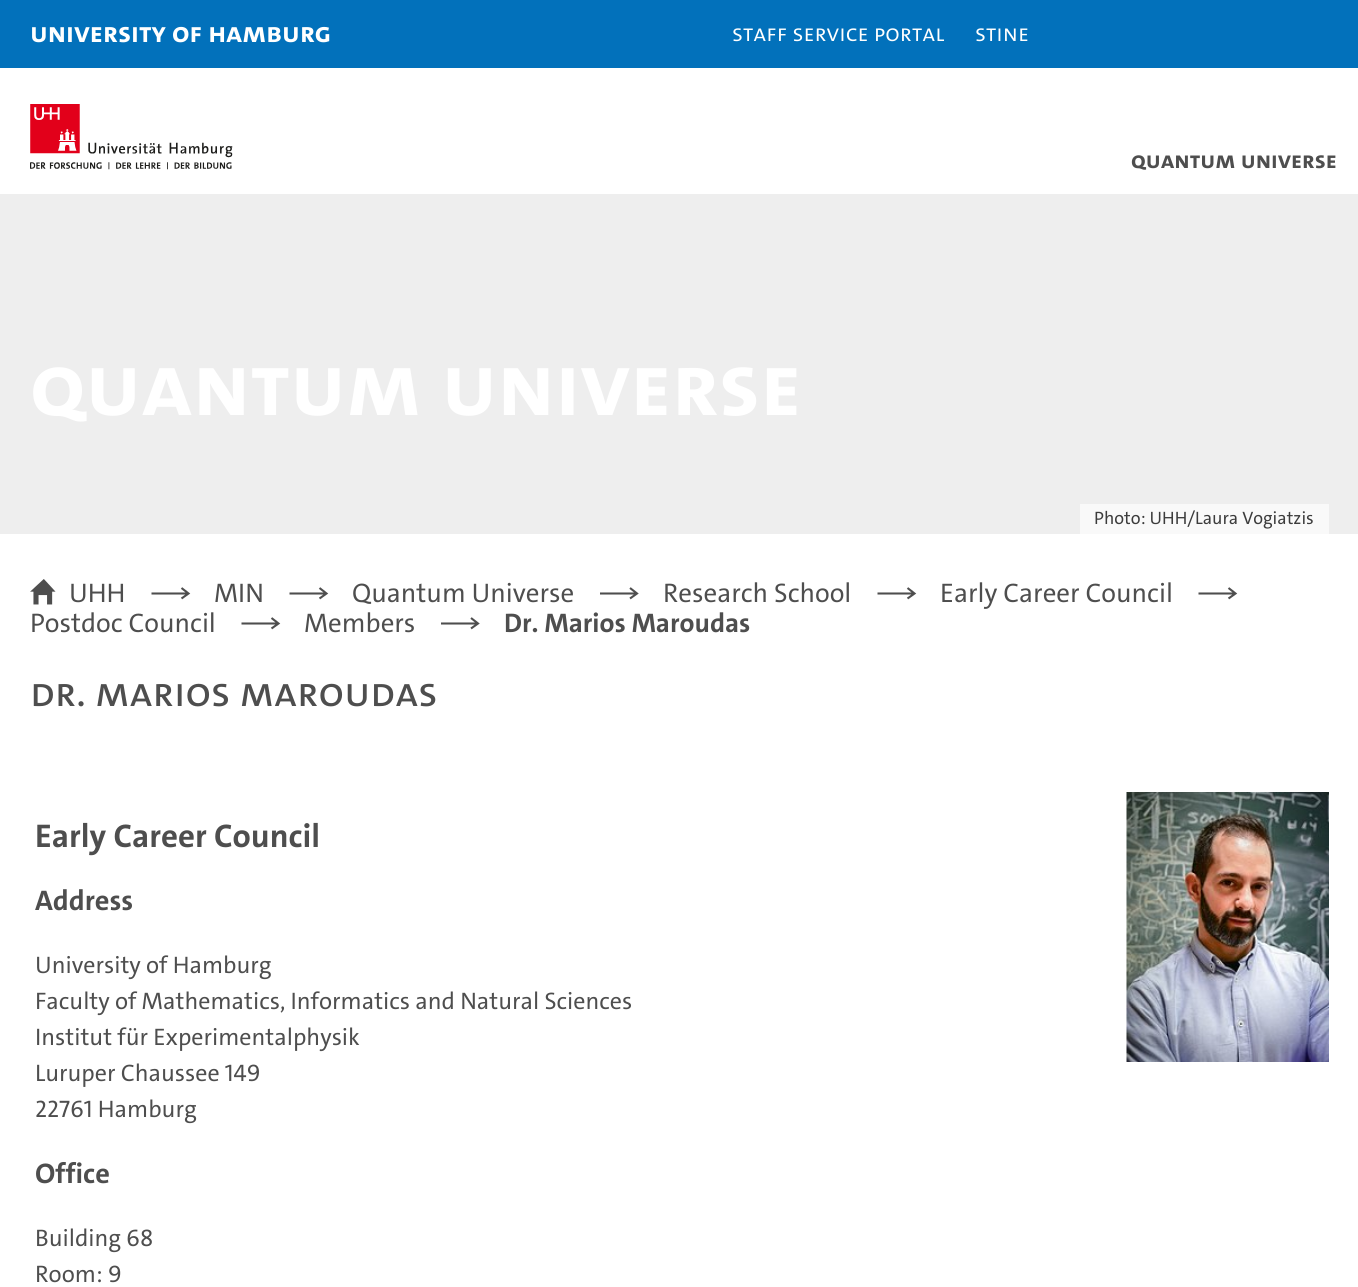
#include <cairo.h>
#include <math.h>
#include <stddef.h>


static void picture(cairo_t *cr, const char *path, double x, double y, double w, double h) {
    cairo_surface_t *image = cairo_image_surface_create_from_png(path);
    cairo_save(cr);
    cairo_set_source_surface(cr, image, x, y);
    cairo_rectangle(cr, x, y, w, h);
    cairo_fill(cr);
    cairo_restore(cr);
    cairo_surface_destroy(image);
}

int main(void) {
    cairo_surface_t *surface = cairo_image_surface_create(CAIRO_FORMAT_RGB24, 1358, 1287);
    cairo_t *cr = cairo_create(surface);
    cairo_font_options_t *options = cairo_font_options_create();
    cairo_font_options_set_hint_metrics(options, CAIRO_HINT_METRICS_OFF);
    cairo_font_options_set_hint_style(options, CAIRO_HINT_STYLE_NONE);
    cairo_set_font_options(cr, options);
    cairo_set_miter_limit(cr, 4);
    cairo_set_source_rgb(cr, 1, 1, 1);
    cairo_paint(cr);
    cairo_set_source_rgb(cr, 0.008, 0.443, 0.733);
    cairo_rectangle(cr, 0, 0, 1358, 68);
    cairo_fill(cr);
    cairo_select_font_face(cr, "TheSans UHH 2", CAIRO_FONT_SLANT_NORMAL, CAIRO_FONT_WEIGHT_BOLD);
    cairo_set_font_size(cr, 28.5);
    cairo_set_source_rgb(cr, 1, 1, 1);
    cairo_move_to(cr, 30, 42);
    cairo_show_text(cr, "University of Hamburg");
    cairo_select_font_face(cr, "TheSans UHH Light", CAIRO_FONT_SLANT_NORMAL, CAIRO_FONT_WEIGHT_NORMAL);
    cairo_set_font_size(cr, 24);
    cairo_move_to(cr, 732, 41);
    cairo_show_text(cr, "Staff Service Portal");
    cairo_move_to(cr, 975, 41);
    cairo_show_text(cr, "STiNE");
    picture(cr, "img1.png", 30, 104, 203, 66);
    cairo_select_font_face(cr, "TheSans UHH 2", CAIRO_FONT_SLANT_NORMAL, CAIRO_FONT_WEIGHT_BOLD);
    cairo_set_source_rgb(cr, 0.306, 0.306, 0.306);
    cairo_move_to(cr, 1131, 168);
    cairo_show_text(cr, "Quantum Universe");
    cairo_set_source_rgb(cr, 0.933, 0.933, 0.933);
    cairo_rectangle(cr, 0, 194, 1358, 340);
    cairo_fill(cr);
    cairo_set_font_size(cr, 90);
    cairo_set_source_rgb(cr, 1, 1, 1);
    cairo_move_to(cr, 30, 415);
    cairo_show_text(cr, "Quantum Universe");
    cairo_set_source_rgb(cr, 0.976, 0.976, 0.976);
    cairo_rectangle(cr, 1080, 504, 249, 30);
    cairo_fill(cr);
    cairo_select_font_face(cr, "TheSans UHH", CAIRO_FONT_SLANT_NORMAL, CAIRO_FONT_WEIGHT_NORMAL);
    cairo_set_font_size(cr, 18);
    cairo_set_source_rgb(cr, 0.235, 0.235, 0.235);
    cairo_move_to(cr, 1094, 524);
    cairo_show_text(cr, "Photo: UHH/Laura Vogiatzis");
    picture(cr, "img2.png", 30, 579, 26, 26);
    cairo_set_font_size(cr, 27);
    cairo_set_source_rgb(cr, 0.306, 0.306, 0.306);
    cairo_move_to(cr, 69, 602);
    cairo_show_text(cr, "UHH");
    cairo_new_path(cr);
    cairo_move_to(cr, 151.5, 593.5);
    cairo_line_to(cr, 187.5, 593.5);
    cairo_move_to(cr, 181.5, 588);
    cairo_line_to(cr, 188.5, 593.5);
    cairo_line_to(cr, 181.5, 598.5);
    cairo_set_line_width(cr, 2.1);
    cairo_stroke(cr);
    cairo_move_to(cr, 214, 602);
    cairo_show_text(cr, "MIN");
    cairo_new_path(cr);
    cairo_move_to(cr, 289.5, 593.5);
    cairo_line_to(cr, 325.5, 593.5);
    cairo_move_to(cr, 319.5, 588);
    cairo_line_to(cr, 326.5, 593.5);
    cairo_line_to(cr, 319.5, 598.5);
    cairo_stroke(cr);
    cairo_move_to(cr, 352, 602);
    cairo_show_text(cr, "Quantum Universe");
    cairo_new_path(cr);
    cairo_move_to(cr, 600, 593.5);
    cairo_line_to(cr, 636, 593.5);
    cairo_move_to(cr, 630, 588);
    cairo_line_to(cr, 637, 593.5);
    cairo_line_to(cr, 630, 598.5);
    cairo_stroke(cr);
    cairo_move_to(cr, 663, 602);
    cairo_show_text(cr, "Research School");
    cairo_new_path(cr);
    cairo_move_to(cr, 877.5, 593.5);
    cairo_line_to(cr, 913.5, 593.5);
    cairo_move_to(cr, 907.5, 588);
    cairo_line_to(cr, 914.5, 593.5);
    cairo_line_to(cr, 907.5, 598.5);
    cairo_stroke(cr);
    cairo_move_to(cr, 940, 602);
    cairo_show_text(cr, "Early Career Council");
    cairo_new_path(cr);
    cairo_move_to(cr, 1198.5, 593.5);
    cairo_line_to(cr, 1234.5, 593.5);
    cairo_move_to(cr, 1228.5, 588);
    cairo_line_to(cr, 1235.5, 593.5);
    cairo_line_to(cr, 1228.5, 598.5);
    cairo_stroke(cr);
    cairo_move_to(cr, 30, 632);
    cairo_show_text(cr, "Postdoc Council");
    cairo_new_path(cr);
    cairo_move_to(cr, 241.5, 623.5);
    cairo_line_to(cr, 277.5, 623.5);
    cairo_move_to(cr, 271.5, 618);
    cairo_line_to(cr, 278.5, 623.5);
    cairo_line_to(cr, 271.5, 628.5);
    cairo_stroke(cr);
    cairo_move_to(cr, 304, 632);
    cairo_show_text(cr, "Members");
    cairo_new_path(cr);
    cairo_move_to(cr, 441, 623.5);
    cairo_line_to(cr, 477, 623.5);
    cairo_move_to(cr, 471, 618);
    cairo_line_to(cr, 478, 623.5);
    cairo_line_to(cr, 471, 628.5);
    cairo_stroke(cr);
    cairo_select_font_face(cr, "TheSans UHH", CAIRO_FONT_SLANT_NORMAL, CAIRO_FONT_WEIGHT_BOLD);
    cairo_move_to(cr, 504, 632);
    cairo_show_text(cr, "Dr. Marios Maroudas");
    cairo_select_font_face(cr, "TheSans UHH 2", CAIRO_FONT_SLANT_NORMAL, CAIRO_FONT_WEIGHT_NORMAL);
    cairo_set_font_size(cr, 42);
    cairo_move_to(cr, 30, 706);
    cairo_show_text(cr, "Dr. Marios Maroudas");
    cairo_select_font_face(cr, "TheSans UHH", CAIRO_FONT_SLANT_NORMAL, CAIRO_FONT_WEIGHT_BOLD);
    cairo_set_font_size(cr, 33);
    cairo_move_to(cr, 35, 847);
    cairo_show_text(cr, "Early Career Council");
    cairo_set_font_size(cr, 28.5);
    cairo_move_to(cr, 35, 910);
    cairo_show_text(cr, "Address");
    cairo_select_font_face(cr, "TheSans UHH", CAIRO_FONT_SLANT_NORMAL, CAIRO_FONT_WEIGHT_NORMAL);
    cairo_set_font_size(cr, 24);
    cairo_move_to(cr, 35, 973);
    cairo_show_text(cr, "University of Hamburg");
    cairo_move_to(cr, 35, 1009);
    cairo_show_text(cr, "Faculty of Mathematics, Informatics and Natural Sciences");
    cairo_move_to(cr, 35, 1045);
    cairo_show_text(cr, "Institut für Experimentalphysik");
    cairo_move_to(cr, 35, 1081);
    cairo_show_text(cr, "Luruper Chaussee 149");
    cairo_move_to(cr, 35, 1117);
    cairo_show_text(cr, "22761 Hamburg");
    cairo_select_font_face(cr, "TheSans UHH", CAIRO_FONT_SLANT_NORMAL, CAIRO_FONT_WEIGHT_BOLD);
    cairo_set_font_size(cr, 28.5);
    cairo_move_to(cr, 35, 1183);
    cairo_show_text(cr, "Office");
    cairo_select_font_face(cr, "TheSans UHH", CAIRO_FONT_SLANT_NORMAL, CAIRO_FONT_WEIGHT_NORMAL);
    cairo_set_font_size(cr, 24);
    cairo_move_to(cr, 35, 1246);
    cairo_show_text(cr, "Building 68");
    cairo_move_to(cr, 35, 1282);
    cairo_show_text(cr, "Room: 9");
    picture(cr, "img3.png", 1126, 792, 203, 270);
    cairo_surface_write_to_png(surface, "page.png");
    cairo_font_options_destroy(options);
    cairo_destroy(cr);
    cairo_surface_destroy(surface);
    return 0;
}
